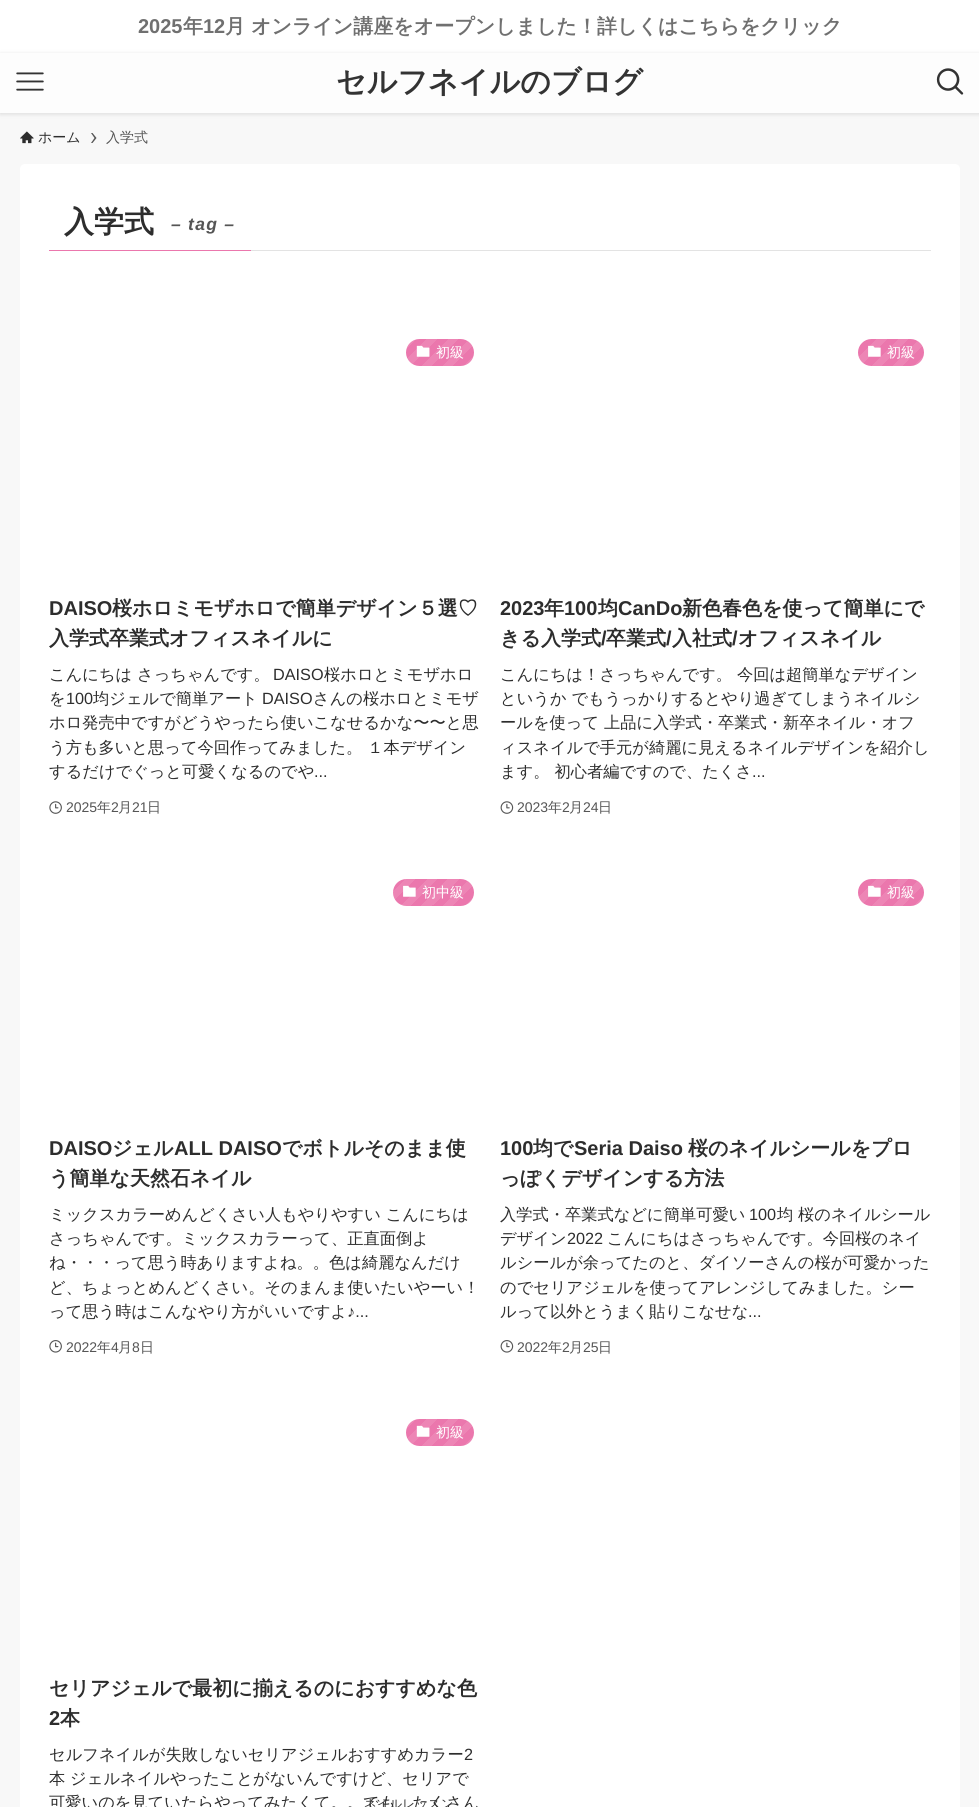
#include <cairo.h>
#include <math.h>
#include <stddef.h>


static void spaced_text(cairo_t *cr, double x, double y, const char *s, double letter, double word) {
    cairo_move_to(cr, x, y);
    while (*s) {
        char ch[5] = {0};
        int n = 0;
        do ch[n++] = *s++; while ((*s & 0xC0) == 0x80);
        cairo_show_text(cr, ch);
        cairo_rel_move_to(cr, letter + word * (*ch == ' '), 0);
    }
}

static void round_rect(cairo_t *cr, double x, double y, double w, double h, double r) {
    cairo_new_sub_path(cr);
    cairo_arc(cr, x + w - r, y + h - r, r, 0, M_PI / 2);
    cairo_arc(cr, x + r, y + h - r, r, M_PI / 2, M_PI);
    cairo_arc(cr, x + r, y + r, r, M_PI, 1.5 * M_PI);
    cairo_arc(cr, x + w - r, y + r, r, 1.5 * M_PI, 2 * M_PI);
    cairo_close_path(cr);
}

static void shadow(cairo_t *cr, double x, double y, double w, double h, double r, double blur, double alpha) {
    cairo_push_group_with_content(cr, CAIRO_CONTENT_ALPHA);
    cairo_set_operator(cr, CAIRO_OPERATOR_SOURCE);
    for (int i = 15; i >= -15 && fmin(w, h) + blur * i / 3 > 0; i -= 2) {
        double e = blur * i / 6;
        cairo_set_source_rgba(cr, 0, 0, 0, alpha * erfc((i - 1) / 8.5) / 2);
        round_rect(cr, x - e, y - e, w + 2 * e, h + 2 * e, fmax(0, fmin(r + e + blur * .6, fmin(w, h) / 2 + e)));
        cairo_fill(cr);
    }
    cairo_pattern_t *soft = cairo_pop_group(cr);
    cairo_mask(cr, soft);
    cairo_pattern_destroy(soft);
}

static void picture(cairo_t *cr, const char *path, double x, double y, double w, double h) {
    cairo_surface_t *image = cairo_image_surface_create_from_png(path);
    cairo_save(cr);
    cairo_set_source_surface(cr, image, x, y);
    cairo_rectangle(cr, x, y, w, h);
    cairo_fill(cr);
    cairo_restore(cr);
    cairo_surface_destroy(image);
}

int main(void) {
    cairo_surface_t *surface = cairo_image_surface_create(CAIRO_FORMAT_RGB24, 979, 1807);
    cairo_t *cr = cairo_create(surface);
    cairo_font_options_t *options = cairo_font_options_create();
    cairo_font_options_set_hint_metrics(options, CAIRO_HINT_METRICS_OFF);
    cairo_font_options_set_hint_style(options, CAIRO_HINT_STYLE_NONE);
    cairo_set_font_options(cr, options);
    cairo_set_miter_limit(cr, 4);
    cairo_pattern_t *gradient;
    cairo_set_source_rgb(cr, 0.969, 0.969, 0.969);
    cairo_paint(cr);
    cairo_set_source_rgb(cr, 1, 1, 1);
    cairo_rectangle(cr, 0, 0, 979, 53);
    cairo_fill(cr);
    cairo_select_font_face(cr, "Liberation Sans", CAIRO_FONT_SLANT_NORMAL, CAIRO_FONT_WEIGHT_BOLD);
    cairo_set_font_size(cr, 20);
    cairo_set_source_rgb(cr, 0.439, 0.439, 0.439);
    cairo_move_to(cr, 138, 33);
    cairo_show_text(cr, "2025");
    cairo_select_font_face(cr, "WenQuanYi Zen Hei", CAIRO_FONT_SLANT_NORMAL, CAIRO_FONT_WEIGHT_BOLD);
    cairo_move_to(cr, 183, 33);
    cairo_show_text(cr, "年");
    cairo_select_font_face(cr, "Liberation Sans", CAIRO_FONT_SLANT_NORMAL, CAIRO_FONT_WEIGHT_BOLD);
    cairo_move_to(cr, 203, 33);
    cairo_show_text(cr, "12");
    cairo_select_font_face(cr, "WenQuanYi Zen Hei", CAIRO_FONT_SLANT_NORMAL, CAIRO_FONT_WEIGHT_BOLD);
    cairo_move_to(cr, 225, 33);
    cairo_show_text(cr, "月 オンライン講座をオープンしました！詳しくはこちらをクリック");
    cairo_set_source_rgb(cr, 0, 0, 0);
    shadow(cr, 0, 54, 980, 60, 0, 2.5, 0.12);
    cairo_set_source_rgb(cr, 0.992, 0.992, 0.992);
    cairo_rectangle(cr, 0, 53, 979, 60);
    cairo_fill(cr);
    picture(cr, "img1.png", 16, 72, 28, 19);
    cairo_set_font_size(cr, 30);
    cairo_set_source_rgb(cr, 0.2, 0.2, 0.2);
    cairo_move_to(cr, 336, 92);
    cairo_show_text(cr, "セルフネイルのブログ");
    picture(cr, "img2.png", 936, 68, 28, 27);
    picture(cr, "img3.png", 20, 131, 14, 13);
    cairo_select_font_face(cr, "WenQuanYi Zen Hei Medium", CAIRO_FONT_SLANT_NORMAL, CAIRO_FONT_WEIGHT_NORMAL);
    cairo_set_font_size(cr, 14);
    cairo_set_source_rgb(cr, 0.176, 0.176, 0.176);
    cairo_move_to(cr, 38, 142);
    cairo_show_text(cr, "ホーム");
    cairo_set_source_rgb(cr, 0.333, 0.333, 0.333);
    cairo_new_path(cr);
    cairo_move_to(cr, 92.5, 133);
    cairo_line_to(cr, 91, 133);
    cairo_line_to(cr, 94.5, 138);
    cairo_line_to(cr, 91, 143);
    cairo_line_to(cr, 92.5, 143);
    cairo_line_to(cr, 96.5, 138);
    cairo_close_path(cr);
    cairo_fill(cr);
    cairo_move_to(cr, 106, 142);
    cairo_show_text(cr, "入学式");
    cairo_set_source_rgb(cr, 1, 1, 1);
    round_rect(cr, 20, 164, 940, 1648, 5);
    cairo_fill(cr);
    cairo_set_source_rgb(cr, 0.89, 0.89, 0.89);
    cairo_rectangle(cr, 251, 250, 680, 1);
    cairo_fill(cr);
    cairo_set_source_rgb(cr, 0.918, 0.467, 0.678);
    cairo_rectangle(cr, 49, 250, 202, 1);
    cairo_fill(cr);
    cairo_select_font_face(cr, "WenQuanYi Zen Hei", CAIRO_FONT_SLANT_NORMAL, CAIRO_FONT_WEIGHT_BOLD);
    cairo_set_font_size(cr, 30);
    cairo_set_source_rgb(cr, 0.176, 0.176, 0.176);
    cairo_move_to(cr, 64, 232);
    cairo_show_text(cr, "入学式");
    cairo_select_font_face(cr, "Liberation Sans", CAIRO_FONT_SLANT_ITALIC, CAIRO_FONT_WEIGHT_BOLD);
    cairo_set_font_size(cr, 17.5);
    cairo_set_source_rgb(cr, 0.333, 0.333, 0.333);
    spaced_text(cr, 171, 230, "– tag –", 1.25, 0);
    cairo_set_source_rgb(cr, 0.918, 0.467, 0.678);
    round_rect(cr, 406, 339, 68, 27, 13.5);
    cairo_fill(cr);
    gradient = cairo_pattern_create_linear(464, 376, 411, 323);
    cairo_pattern_add_color_stop_rgba(gradient, 0, 1, 1, 1, 0.1);
    cairo_pattern_add_color_stop_rgba(gradient, 0.1, 1, 1, 1, 0.1);
    cairo_pattern_add_color_stop_rgba(gradient, 0.1, 1, 1, 1, 0);
    cairo_pattern_add_color_stop_rgba(gradient, 0.2, 1, 1, 1, 0);
    cairo_pattern_add_color_stop_rgba(gradient, 0.2, 1, 1, 1, 0.1);
    cairo_pattern_add_color_stop_rgba(gradient, 0.3, 1, 1, 1, 0.1);
    cairo_pattern_add_color_stop_rgba(gradient, 0.3, 1, 1, 1, 0);
    cairo_pattern_add_color_stop_rgba(gradient, 0.4, 1, 1, 1, 0);
    cairo_pattern_add_color_stop_rgba(gradient, 0.4, 1, 1, 1, 0.1);
    cairo_pattern_add_color_stop_rgba(gradient, 0.5, 1, 1, 1, 0.1);
    cairo_pattern_add_color_stop_rgba(gradient, 0.5, 1, 1, 1, 0);
    cairo_pattern_add_color_stop_rgba(gradient, 0.6, 1, 1, 1, 0);
    cairo_pattern_add_color_stop_rgba(gradient, 0.6, 1, 1, 1, 0.1);
    cairo_pattern_add_color_stop_rgba(gradient, 0.7, 1, 1, 1, 0.1);
    cairo_pattern_add_color_stop_rgba(gradient, 0.7, 1, 1, 1, 0);
    cairo_pattern_add_color_stop_rgba(gradient, 0.8, 1, 1, 1, 0);
    cairo_pattern_add_color_stop_rgba(gradient, 0.8, 1, 1, 1, 0.1);
    cairo_pattern_add_color_stop_rgba(gradient, 0.9, 1, 1, 1, 0.1);
    cairo_pattern_add_color_stop_rgba(gradient, 0.9, 1, 1, 1, 0);
    cairo_pattern_add_color_stop_rgba(gradient, 1, 0, 0, 0, 0);
    cairo_set_source(cr, gradient);
    cairo_pattern_destroy(gradient);
    round_rect(cr, 406, 339, 68, 27, 13.5);
    cairo_fill(cr);
    picture(cr, "img4.png", 416, 345, 14, 12);
    cairo_select_font_face(cr, "WenQuanYi Zen Hei Medium", CAIRO_FONT_SLANT_NORMAL, CAIRO_FONT_WEIGHT_NORMAL);
    cairo_set_font_size(cr, 14);
    cairo_set_source_rgb(cr, 1, 1, 1);
    cairo_move_to(cr, 436, 357);
    cairo_show_text(cr, "初級");
    cairo_select_font_face(cr, "Liberation Sans", CAIRO_FONT_SLANT_NORMAL, CAIRO_FONT_WEIGHT_BOLD);
    cairo_set_font_size(cr, 20);
    cairo_set_source_rgb(cr, 0.176, 0.176, 0.176);
    cairo_move_to(cr, 49, 615);
    cairo_show_text(cr, "DAISO");
    cairo_select_font_face(cr, "WenQuanYi Zen Hei", CAIRO_FONT_SLANT_NORMAL, CAIRO_FONT_WEIGHT_BOLD);
    cairo_move_to(cr, 112, 615);
    cairo_show_text(cr, "桜ホロミモザホロで簡単デザイン５選♡");
    cairo_move_to(cr, 49, 645);
    cairo_show_text(cr, "入学式卒業式オフィスネイルに");
    cairo_select_font_face(cr, "WenQuanYi Zen Hei Medium", CAIRO_FONT_SLANT_NORMAL, CAIRO_FONT_WEIGHT_NORMAL);
    cairo_set_font_size(cr, 16.25);
    cairo_move_to(cr, 49, 680);
    cairo_show_text(cr, "こんにちは さっちゃんです。");
    cairo_select_font_face(cr, "Liberation Sans", CAIRO_FONT_SLANT_NORMAL, CAIRO_FONT_WEIGHT_NORMAL);
    cairo_move_to(cr, 273, 680);
    cairo_show_text(cr, "DAISO");
    cairo_select_font_face(cr, "WenQuanYi Zen Hei Medium", CAIRO_FONT_SLANT_NORMAL, CAIRO_FONT_WEIGHT_NORMAL);
    cairo_move_to(cr, 324, 680);
    cairo_show_text(cr, "桜ホロとミモザホロ");
    cairo_move_to(cr, 49, 704);
    cairo_show_text(cr, "を");
    cairo_select_font_face(cr, "Liberation Sans", CAIRO_FONT_SLANT_NORMAL, CAIRO_FONT_WEIGHT_NORMAL);
    cairo_move_to(cr, 66, 704);
    cairo_show_text(cr, "100");
    cairo_select_font_face(cr, "WenQuanYi Zen Hei Medium", CAIRO_FONT_SLANT_NORMAL, CAIRO_FONT_WEIGHT_NORMAL);
    cairo_move_to(cr, 93, 704);
    cairo_show_text(cr, "均ジェルで簡単アート");
    cairo_select_font_face(cr, "Liberation Sans", CAIRO_FONT_SLANT_NORMAL, CAIRO_FONT_WEIGHT_NORMAL);
    cairo_move_to(cr, 262, 704);
    cairo_show_text(cr, "DAISO");
    cairo_select_font_face(cr, "WenQuanYi Zen Hei Medium", CAIRO_FONT_SLANT_NORMAL, CAIRO_FONT_WEIGHT_NORMAL);
    cairo_move_to(cr, 313, 704);
    cairo_show_text(cr, "さんの桜ホロとミモザ");
    cairo_move_to(cr, 49, 728);
    cairo_show_text(cr, "ホロ発売中ですがどうやったら使いこなせるかな〜〜と思");
    cairo_move_to(cr, 49, 753);
    cairo_show_text(cr, "う方も多いと思って今回作ってみました。 １本デザイン");
    cairo_move_to(cr, 49, 777);
    cairo_show_text(cr, "するだけでぐっと可愛くなるのでや");
    cairo_select_font_face(cr, "Liberation Sans", CAIRO_FONT_SLANT_NORMAL, CAIRO_FONT_WEIGHT_NORMAL);
    cairo_move_to(cr, 314, 777);
    cairo_show_text(cr, "...");
    picture(cr, "img5.png", 49, 801, 13, 13);
    cairo_set_font_size(cr, 14);
    cairo_set_source_rgb(cr, 0.333, 0.333, 0.333);
    cairo_move_to(cr, 66, 812);
    cairo_show_text(cr, "2025");
    cairo_select_font_face(cr, "WenQuanYi Zen Hei Medium", CAIRO_FONT_SLANT_NORMAL, CAIRO_FONT_WEIGHT_NORMAL);
    cairo_move_to(cr, 97, 812);
    cairo_show_text(cr, "年");
    cairo_select_font_face(cr, "Liberation Sans", CAIRO_FONT_SLANT_NORMAL, CAIRO_FONT_WEIGHT_NORMAL);
    cairo_move_to(cr, 111, 812);
    cairo_show_text(cr, "2");
    cairo_select_font_face(cr, "WenQuanYi Zen Hei Medium", CAIRO_FONT_SLANT_NORMAL, CAIRO_FONT_WEIGHT_NORMAL);
    cairo_move_to(cr, 118, 812);
    cairo_show_text(cr, "月");
    cairo_select_font_face(cr, "Liberation Sans", CAIRO_FONT_SLANT_NORMAL, CAIRO_FONT_WEIGHT_NORMAL);
    cairo_move_to(cr, 132, 812);
    cairo_show_text(cr, "21");
    cairo_select_font_face(cr, "WenQuanYi Zen Hei Medium", CAIRO_FONT_SLANT_NORMAL, CAIRO_FONT_WEIGHT_NORMAL);
    cairo_move_to(cr, 147, 812);
    cairo_show_text(cr, "日");
    cairo_set_source_rgb(cr, 0.918, 0.467, 0.678);
    round_rect(cr, 858, 339, 66, 27, 13.5);
    cairo_fill(cr);
    gradient = cairo_pattern_create_linear(914, 376, 861, 323);
    cairo_pattern_add_color_stop_rgba(gradient, 0, 1, 1, 1, 0.1);
    cairo_pattern_add_color_stop_rgba(gradient, 0.1, 1, 1, 1, 0.1);
    cairo_pattern_add_color_stop_rgba(gradient, 0.1, 1, 1, 1, 0);
    cairo_pattern_add_color_stop_rgba(gradient, 0.2, 1, 1, 1, 0);
    cairo_pattern_add_color_stop_rgba(gradient, 0.2, 1, 1, 1, 0.1);
    cairo_pattern_add_color_stop_rgba(gradient, 0.3, 1, 1, 1, 0.1);
    cairo_pattern_add_color_stop_rgba(gradient, 0.3, 1, 1, 1, 0);
    cairo_pattern_add_color_stop_rgba(gradient, 0.4, 1, 1, 1, 0);
    cairo_pattern_add_color_stop_rgba(gradient, 0.4, 1, 1, 1, 0.1);
    cairo_pattern_add_color_stop_rgba(gradient, 0.5, 1, 1, 1, 0.1);
    cairo_pattern_add_color_stop_rgba(gradient, 0.5, 1, 1, 1, 0);
    cairo_pattern_add_color_stop_rgba(gradient, 0.6, 1, 1, 1, 0);
    cairo_pattern_add_color_stop_rgba(gradient, 0.6, 1, 1, 1, 0.1);
    cairo_pattern_add_color_stop_rgba(gradient, 0.7, 1, 1, 1, 0.1);
    cairo_pattern_add_color_stop_rgba(gradient, 0.7, 1, 1, 1, 0);
    cairo_pattern_add_color_stop_rgba(gradient, 0.8, 1, 1, 1, 0);
    cairo_pattern_add_color_stop_rgba(gradient, 0.8, 1, 1, 1, 0.1);
    cairo_pattern_add_color_stop_rgba(gradient, 0.9, 1, 1, 1, 0.1);
    cairo_pattern_add_color_stop_rgba(gradient, 0.9, 1, 1, 1, 0);
    cairo_pattern_add_color_stop_rgba(gradient, 1, 0, 0, 0, 0);
    cairo_set_source(cr, gradient);
    cairo_pattern_destroy(gradient);
    round_rect(cr, 858, 339, 66, 27, 13.5);
    cairo_fill(cr);
    picture(cr, "img6.png", 868, 345, 13, 12);
    cairo_set_source_rgb(cr, 1, 1, 1);
    cairo_move_to(cr, 887, 357);
    cairo_show_text(cr, "初級");
    cairo_select_font_face(cr, "Liberation Sans", CAIRO_FONT_SLANT_NORMAL, CAIRO_FONT_WEIGHT_BOLD);
    cairo_set_font_size(cr, 20);
    cairo_set_source_rgb(cr, 0.176, 0.176, 0.176);
    cairo_move_to(cr, 500, 615);
    cairo_show_text(cr, "2023");
    cairo_select_font_face(cr, "WenQuanYi Zen Hei", CAIRO_FONT_SLANT_NORMAL, CAIRO_FONT_WEIGHT_BOLD);
    cairo_move_to(cr, 544, 615);
    cairo_show_text(cr, "年");
    cairo_select_font_face(cr, "Liberation Sans", CAIRO_FONT_SLANT_NORMAL, CAIRO_FONT_WEIGHT_BOLD);
    cairo_move_to(cr, 564, 615);
    cairo_show_text(cr, "100");
    cairo_select_font_face(cr, "WenQuanYi Zen Hei", CAIRO_FONT_SLANT_NORMAL, CAIRO_FONT_WEIGHT_BOLD);
    cairo_move_to(cr, 598, 615);
    cairo_show_text(cr, "均");
    cairo_select_font_face(cr, "Liberation Sans", CAIRO_FONT_SLANT_NORMAL, CAIRO_FONT_WEIGHT_BOLD);
    cairo_move_to(cr, 618, 615);
    cairo_show_text(cr, "CanDo");
    cairo_select_font_face(cr, "WenQuanYi Zen Hei", CAIRO_FONT_SLANT_NORMAL, CAIRO_FONT_WEIGHT_BOLD);
    cairo_move_to(cr, 682, 615);
    cairo_show_text(cr, "新色春色を使って簡単にで");
    cairo_move_to(cr, 500, 645);
    cairo_show_text(cr, "きる入学式");
    cairo_select_font_face(cr, "Liberation Sans", CAIRO_FONT_SLANT_NORMAL, CAIRO_FONT_WEIGHT_BOLD);
    cairo_move_to(cr, 601, 645);
    cairo_show_text(cr, "/");
    cairo_select_font_face(cr, "WenQuanYi Zen Hei", CAIRO_FONT_SLANT_NORMAL, CAIRO_FONT_WEIGHT_BOLD);
    cairo_move_to(cr, 606, 645);
    cairo_show_text(cr, "卒業式");
    cairo_select_font_face(cr, "Liberation Sans", CAIRO_FONT_SLANT_NORMAL, CAIRO_FONT_WEIGHT_BOLD);
    cairo_move_to(cr, 666, 645);
    cairo_show_text(cr, "/");
    cairo_select_font_face(cr, "WenQuanYi Zen Hei", CAIRO_FONT_SLANT_NORMAL, CAIRO_FONT_WEIGHT_BOLD);
    cairo_move_to(cr, 672, 645);
    cairo_show_text(cr, "入社式");
    cairo_select_font_face(cr, "Liberation Sans", CAIRO_FONT_SLANT_NORMAL, CAIRO_FONT_WEIGHT_BOLD);
    cairo_move_to(cr, 732, 645);
    cairo_show_text(cr, "/");
    cairo_select_font_face(cr, "WenQuanYi Zen Hei", CAIRO_FONT_SLANT_NORMAL, CAIRO_FONT_WEIGHT_BOLD);
    cairo_move_to(cr, 738, 645);
    cairo_show_text(cr, "オフィスネイル");
    cairo_select_font_face(cr, "WenQuanYi Zen Hei Medium", CAIRO_FONT_SLANT_NORMAL, CAIRO_FONT_WEIGHT_NORMAL);
    cairo_set_font_size(cr, 16.25);
    cairo_move_to(cr, 500, 680);
    cairo_show_text(cr, "こんにちは！さっちゃんです。 今回は超簡単なデザイン");
    cairo_move_to(cr, 500, 704);
    cairo_show_text(cr, "というか でもうっかりするとやり過ぎてしまうネイルシ");
    cairo_move_to(cr, 500, 728);
    cairo_show_text(cr, "ールを使って 上品に入学式・卒業式・新卒ネイル・オフ");
    cairo_move_to(cr, 500, 753);
    cairo_show_text(cr, "ィスネイルで手元が綺麗に見えるネイルデザインを紹介し");
    cairo_move_to(cr, 500, 777);
    cairo_show_text(cr, "ます。 初心者編ですので、たくさ");
    cairo_select_font_face(cr, "Liberation Sans", CAIRO_FONT_SLANT_NORMAL, CAIRO_FONT_WEIGHT_NORMAL);
    cairo_move_to(cr, 752, 777);
    cairo_show_text(cr, "...");
    picture(cr, "img7.png", 500, 801, 14, 13);
    cairo_set_font_size(cr, 14);
    cairo_set_source_rgb(cr, 0.333, 0.333, 0.333);
    cairo_move_to(cr, 517, 812);
    cairo_show_text(cr, "2023");
    cairo_select_font_face(cr, "WenQuanYi Zen Hei Medium", CAIRO_FONT_SLANT_NORMAL, CAIRO_FONT_WEIGHT_NORMAL);
    cairo_move_to(cr, 548, 812);
    cairo_show_text(cr, "年");
    cairo_select_font_face(cr, "Liberation Sans", CAIRO_FONT_SLANT_NORMAL, CAIRO_FONT_WEIGHT_NORMAL);
    cairo_move_to(cr, 562, 812);
    cairo_show_text(cr, "2");
    cairo_select_font_face(cr, "WenQuanYi Zen Hei Medium", CAIRO_FONT_SLANT_NORMAL, CAIRO_FONT_WEIGHT_NORMAL);
    cairo_move_to(cr, 569, 812);
    cairo_show_text(cr, "月");
    cairo_select_font_face(cr, "Liberation Sans", CAIRO_FONT_SLANT_NORMAL, CAIRO_FONT_WEIGHT_NORMAL);
    cairo_move_to(cr, 583, 812);
    cairo_show_text(cr, "24");
    cairo_select_font_face(cr, "WenQuanYi Zen Hei Medium", CAIRO_FONT_SLANT_NORMAL, CAIRO_FONT_WEIGHT_NORMAL);
    cairo_move_to(cr, 598, 812);
    cairo_show_text(cr, "日");
    cairo_set_source_rgb(cr, 0.918, 0.467, 0.678);
    round_rect(cr, 393, 879, 81, 27, 13.5);
    cairo_fill(cr);
    gradient = cairo_pattern_create_linear(460, 920, 397, 856);
    cairo_pattern_add_color_stop_rgba(gradient, 0, 1, 1, 1, 0.1);
    cairo_pattern_add_color_stop_rgba(gradient, 0.08, 1, 1, 1, 0.1);
    cairo_pattern_add_color_stop_rgba(gradient, 0.08, 1, 1, 1, 0);
    cairo_pattern_add_color_stop_rgba(gradient, 0.17, 1, 1, 1, 0);
    cairo_pattern_add_color_stop_rgba(gradient, 0.17, 1, 1, 1, 0.1);
    cairo_pattern_add_color_stop_rgba(gradient, 0.25, 1, 1, 1, 0.1);
    cairo_pattern_add_color_stop_rgba(gradient, 0.25, 1, 1, 1, 0);
    cairo_pattern_add_color_stop_rgba(gradient, 0.33, 1, 1, 1, 0);
    cairo_pattern_add_color_stop_rgba(gradient, 0.33, 1, 1, 1, 0.1);
    cairo_pattern_add_color_stop_rgba(gradient, 0.42, 1, 1, 1, 0.1);
    cairo_pattern_add_color_stop_rgba(gradient, 0.42, 1, 1, 1, 0);
    cairo_pattern_add_color_stop_rgba(gradient, 0.5, 1, 1, 1, 0);
    cairo_pattern_add_color_stop_rgba(gradient, 0.5, 1, 1, 1, 0.1);
    cairo_pattern_add_color_stop_rgba(gradient, 0.58, 1, 1, 1, 0.1);
    cairo_pattern_add_color_stop_rgba(gradient, 0.58, 1, 1, 1, 0);
    cairo_pattern_add_color_stop_rgba(gradient, 0.67, 1, 1, 1, 0);
    cairo_pattern_add_color_stop_rgba(gradient, 0.67, 1, 1, 1, 0.1);
    cairo_pattern_add_color_stop_rgba(gradient, 0.75, 1, 1, 1, 0.1);
    cairo_pattern_add_color_stop_rgba(gradient, 0.75, 1, 1, 1, 0);
    cairo_pattern_add_color_stop_rgba(gradient, 0.83, 1, 1, 1, 0);
    cairo_pattern_add_color_stop_rgba(gradient, 0.83, 1, 1, 1, 0.1);
    cairo_pattern_add_color_stop_rgba(gradient, 0.92, 1, 1, 1, 0.1);
    cairo_pattern_add_color_stop_rgba(gradient, 0.92, 1, 1, 1, 0);
    cairo_pattern_add_color_stop_rgba(gradient, 1, 0, 0, 0, 0);
    cairo_set_source(cr, gradient);
    cairo_pattern_destroy(gradient);
    round_rect(cr, 393, 879, 81, 27, 13.5);
    cairo_fill(cr);
    picture(cr, "img8.png", 403, 885, 13, 12);
    cairo_set_source_rgb(cr, 1, 1, 1);
    cairo_move_to(cr, 422, 897);
    cairo_show_text(cr, "初中級");
    cairo_select_font_face(cr, "Liberation Sans", CAIRO_FONT_SLANT_NORMAL, CAIRO_FONT_WEIGHT_BOLD);
    cairo_set_font_size(cr, 20);
    cairo_set_source_rgb(cr, 0.176, 0.176, 0.176);
    cairo_move_to(cr, 49, 1155);
    cairo_show_text(cr, "DAISO");
    cairo_select_font_face(cr, "WenQuanYi Zen Hei", CAIRO_FONT_SLANT_NORMAL, CAIRO_FONT_WEIGHT_BOLD);
    cairo_move_to(cr, 112, 1155);
    cairo_show_text(cr, "ジェル");
    cairo_select_font_face(cr, "Liberation Sans", CAIRO_FONT_SLANT_NORMAL, CAIRO_FONT_WEIGHT_BOLD);
    cairo_move_to(cr, 174, 1155);
    cairo_show_text(cr, "ALL DAISO");
    cairo_select_font_face(cr, "WenQuanYi Zen Hei", CAIRO_FONT_SLANT_NORMAL, CAIRO_FONT_WEIGHT_BOLD);
    cairo_move_to(cr, 282, 1155);
    cairo_show_text(cr, "でボトルそのまま使");
    cairo_move_to(cr, 49, 1185);
    cairo_show_text(cr, "う簡単な天然石ネイル");
    cairo_select_font_face(cr, "WenQuanYi Zen Hei Medium", CAIRO_FONT_SLANT_NORMAL, CAIRO_FONT_WEIGHT_NORMAL);
    cairo_set_font_size(cr, 16.25);
    cairo_move_to(cr, 49, 1220);
    cairo_show_text(cr, "ミックスカラーめんどくさい人もやりやすい こんにちは");
    cairo_move_to(cr, 49, 1244);
    cairo_show_text(cr, "さっちゃんです。ミックスカラーって、正直面倒よ");
    cairo_move_to(cr, 49, 1268);
    cairo_show_text(cr, "ね・・・って思う時ありますよね。。色は綺麗なんだけ");
    cairo_move_to(cr, 49, 1293);
    cairo_show_text(cr, "ど、ちょっとめんどくさい。そのまんま使いたいやーい！");
    cairo_move_to(cr, 49, 1317);
    cairo_show_text(cr, "って思う時はこんなやり方がいいですよ");
    cairo_select_font_face(cr, "Liberation Sans", CAIRO_FONT_SLANT_NORMAL, CAIRO_FONT_WEIGHT_NORMAL);
    cairo_move_to(cr, 347, 1317);
    cairo_show_text(cr, "♪...");
    picture(cr, "img9.png", 49, 1340, 13, 13);
    cairo_set_font_size(cr, 14);
    cairo_set_source_rgb(cr, 0.333, 0.333, 0.333);
    cairo_move_to(cr, 66, 1352);
    cairo_show_text(cr, "2022");
    cairo_select_font_face(cr, "WenQuanYi Zen Hei Medium", CAIRO_FONT_SLANT_NORMAL, CAIRO_FONT_WEIGHT_NORMAL);
    cairo_move_to(cr, 97, 1352);
    cairo_show_text(cr, "年");
    cairo_select_font_face(cr, "Liberation Sans", CAIRO_FONT_SLANT_NORMAL, CAIRO_FONT_WEIGHT_NORMAL);
    cairo_move_to(cr, 111, 1352);
    cairo_show_text(cr, "4");
    cairo_select_font_face(cr, "WenQuanYi Zen Hei Medium", CAIRO_FONT_SLANT_NORMAL, CAIRO_FONT_WEIGHT_NORMAL);
    cairo_move_to(cr, 118, 1352);
    cairo_show_text(cr, "月");
    cairo_select_font_face(cr, "Liberation Sans", CAIRO_FONT_SLANT_NORMAL, CAIRO_FONT_WEIGHT_NORMAL);
    cairo_move_to(cr, 132, 1352);
    cairo_show_text(cr, "8");
    cairo_select_font_face(cr, "WenQuanYi Zen Hei Medium", CAIRO_FONT_SLANT_NORMAL, CAIRO_FONT_WEIGHT_NORMAL);
    cairo_move_to(cr, 140, 1352);
    cairo_show_text(cr, "日");
    cairo_set_source_rgb(cr, 0.918, 0.467, 0.678);
    round_rect(cr, 858, 879, 66, 27, 13.5);
    cairo_fill(cr);
    gradient = cairo_pattern_create_linear(914, 916, 861, 863);
    cairo_pattern_add_color_stop_rgba(gradient, 0, 1, 1, 1, 0.1);
    cairo_pattern_add_color_stop_rgba(gradient, 0.1, 1, 1, 1, 0.1);
    cairo_pattern_add_color_stop_rgba(gradient, 0.1, 1, 1, 1, 0);
    cairo_pattern_add_color_stop_rgba(gradient, 0.2, 1, 1, 1, 0);
    cairo_pattern_add_color_stop_rgba(gradient, 0.2, 1, 1, 1, 0.1);
    cairo_pattern_add_color_stop_rgba(gradient, 0.3, 1, 1, 1, 0.1);
    cairo_pattern_add_color_stop_rgba(gradient, 0.3, 1, 1, 1, 0);
    cairo_pattern_add_color_stop_rgba(gradient, 0.4, 1, 1, 1, 0);
    cairo_pattern_add_color_stop_rgba(gradient, 0.4, 1, 1, 1, 0.1);
    cairo_pattern_add_color_stop_rgba(gradient, 0.5, 1, 1, 1, 0.1);
    cairo_pattern_add_color_stop_rgba(gradient, 0.5, 1, 1, 1, 0);
    cairo_pattern_add_color_stop_rgba(gradient, 0.6, 1, 1, 1, 0);
    cairo_pattern_add_color_stop_rgba(gradient, 0.6, 1, 1, 1, 0.1);
    cairo_pattern_add_color_stop_rgba(gradient, 0.7, 1, 1, 1, 0.1);
    cairo_pattern_add_color_stop_rgba(gradient, 0.7, 1, 1, 1, 0);
    cairo_pattern_add_color_stop_rgba(gradient, 0.8, 1, 1, 1, 0);
    cairo_pattern_add_color_stop_rgba(gradient, 0.8, 1, 1, 1, 0.1);
    cairo_pattern_add_color_stop_rgba(gradient, 0.9, 1, 1, 1, 0.1);
    cairo_pattern_add_color_stop_rgba(gradient, 0.9, 1, 1, 1, 0);
    cairo_pattern_add_color_stop_rgba(gradient, 1, 0, 0, 0, 0);
    cairo_set_source(cr, gradient);
    cairo_pattern_destroy(gradient);
    round_rect(cr, 858, 879, 66, 27, 13.5);
    cairo_fill(cr);
    picture(cr, "img6.png", 868, 885, 13, 12);
    cairo_set_source_rgb(cr, 1, 1, 1);
    cairo_move_to(cr, 887, 897);
    cairo_show_text(cr, "初級");
    cairo_select_font_face(cr, "Liberation Sans", CAIRO_FONT_SLANT_NORMAL, CAIRO_FONT_WEIGHT_BOLD);
    cairo_set_font_size(cr, 20);
    cairo_set_source_rgb(cr, 0.176, 0.176, 0.176);
    cairo_move_to(cr, 500, 1155);
    cairo_show_text(cr, "100");
    cairo_select_font_face(cr, "WenQuanYi Zen Hei", CAIRO_FONT_SLANT_NORMAL, CAIRO_FONT_WEIGHT_BOLD);
    cairo_move_to(cr, 533, 1155);
    cairo_show_text(cr, "均で");
    cairo_select_font_face(cr, "Liberation Sans", CAIRO_FONT_SLANT_NORMAL, CAIRO_FONT_WEIGHT_BOLD);
    cairo_move_to(cr, 574, 1155);
    cairo_show_text(cr, "Seria Daiso");
    cairo_select_font_face(cr, "WenQuanYi Zen Hei", CAIRO_FONT_SLANT_NORMAL, CAIRO_FONT_WEIGHT_BOLD);
    cairo_move_to(cr, 688, 1155);
    cairo_show_text(cr, "桜のネイルシールをプロ");
    cairo_move_to(cr, 500, 1185);
    cairo_show_text(cr, "っぽくデザインする方法");
    cairo_select_font_face(cr, "WenQuanYi Zen Hei Medium", CAIRO_FONT_SLANT_NORMAL, CAIRO_FONT_WEIGHT_NORMAL);
    cairo_set_font_size(cr, 16.25);
    cairo_move_to(cr, 500, 1220);
    cairo_show_text(cr, "入学式・卒業式などに簡単可愛い");
    cairo_select_font_face(cr, "Liberation Sans", CAIRO_FONT_SLANT_NORMAL, CAIRO_FONT_WEIGHT_NORMAL);
    cairo_move_to(cr, 749, 1220);
    cairo_show_text(cr, "100");
    cairo_select_font_face(cr, "WenQuanYi Zen Hei Medium", CAIRO_FONT_SLANT_NORMAL, CAIRO_FONT_WEIGHT_NORMAL);
    cairo_move_to(cr, 777, 1220);
    cairo_show_text(cr, "均 桜のネイルシール");
    cairo_move_to(cr, 500, 1244);
    cairo_show_text(cr, "デザイン");
    cairo_select_font_face(cr, "Liberation Sans", CAIRO_FONT_SLANT_NORMAL, CAIRO_FONT_WEIGHT_NORMAL);
    cairo_move_to(cr, 567, 1244);
    cairo_show_text(cr, "2022");
    cairo_select_font_face(cr, "WenQuanYi Zen Hei Medium", CAIRO_FONT_SLANT_NORMAL, CAIRO_FONT_WEIGHT_NORMAL);
    cairo_move_to(cr, 607, 1244);
    cairo_show_text(cr, "こんにちはさっちゃんです。今回桜のネイ");
    cairo_move_to(cr, 500, 1268);
    cairo_show_text(cr, "ルシールが余ってたのと、ダイソーさんの桜が可愛かった");
    cairo_move_to(cr, 500, 1293);
    cairo_show_text(cr, "のでセリアジェルを使ってアレンジしてみました。シー");
    cairo_move_to(cr, 500, 1317);
    cairo_show_text(cr, "ルって以外とうまく貼りこなせな");
    cairo_select_font_face(cr, "Liberation Sans", CAIRO_FONT_SLANT_NORMAL, CAIRO_FONT_WEIGHT_NORMAL);
    cairo_move_to(cr, 748, 1317);
    cairo_show_text(cr, "...");
    picture(cr, "img10.png", 500, 1340, 14, 13);
    cairo_set_font_size(cr, 14);
    cairo_set_source_rgb(cr, 0.333, 0.333, 0.333);
    cairo_move_to(cr, 517, 1352);
    cairo_show_text(cr, "2022");
    cairo_select_font_face(cr, "WenQuanYi Zen Hei Medium", CAIRO_FONT_SLANT_NORMAL, CAIRO_FONT_WEIGHT_NORMAL);
    cairo_move_to(cr, 548, 1352);
    cairo_show_text(cr, "年");
    cairo_select_font_face(cr, "Liberation Sans", CAIRO_FONT_SLANT_NORMAL, CAIRO_FONT_WEIGHT_NORMAL);
    cairo_move_to(cr, 562, 1352);
    cairo_show_text(cr, "2");
    cairo_select_font_face(cr, "WenQuanYi Zen Hei Medium", CAIRO_FONT_SLANT_NORMAL, CAIRO_FONT_WEIGHT_NORMAL);
    cairo_move_to(cr, 569, 1352);
    cairo_show_text(cr, "月");
    cairo_select_font_face(cr, "Liberation Sans", CAIRO_FONT_SLANT_NORMAL, CAIRO_FONT_WEIGHT_NORMAL);
    cairo_move_to(cr, 583, 1352);
    cairo_show_text(cr, "25");
    cairo_select_font_face(cr, "WenQuanYi Zen Hei Medium", CAIRO_FONT_SLANT_NORMAL, CAIRO_FONT_WEIGHT_NORMAL);
    cairo_move_to(cr, 598, 1352);
    cairo_show_text(cr, "日");
    cairo_set_source_rgb(cr, 0.918, 0.467, 0.678);
    round_rect(cr, 406, 1419, 68, 27, 13.5);
    cairo_fill(cr);
    gradient = cairo_pattern_create_linear(464, 1456, 411, 1403);
    cairo_pattern_add_color_stop_rgba(gradient, 0, 1, 1, 1, 0.1);
    cairo_pattern_add_color_stop_rgba(gradient, 0.1, 1, 1, 1, 0.1);
    cairo_pattern_add_color_stop_rgba(gradient, 0.1, 1, 1, 1, 0);
    cairo_pattern_add_color_stop_rgba(gradient, 0.2, 1, 1, 1, 0);
    cairo_pattern_add_color_stop_rgba(gradient, 0.2, 1, 1, 1, 0.1);
    cairo_pattern_add_color_stop_rgba(gradient, 0.3, 1, 1, 1, 0.1);
    cairo_pattern_add_color_stop_rgba(gradient, 0.3, 1, 1, 1, 0);
    cairo_pattern_add_color_stop_rgba(gradient, 0.4, 1, 1, 1, 0);
    cairo_pattern_add_color_stop_rgba(gradient, 0.4, 1, 1, 1, 0.1);
    cairo_pattern_add_color_stop_rgba(gradient, 0.5, 1, 1, 1, 0.1);
    cairo_pattern_add_color_stop_rgba(gradient, 0.5, 1, 1, 1, 0);
    cairo_pattern_add_color_stop_rgba(gradient, 0.6, 1, 1, 1, 0);
    cairo_pattern_add_color_stop_rgba(gradient, 0.6, 1, 1, 1, 0.1);
    cairo_pattern_add_color_stop_rgba(gradient, 0.7, 1, 1, 1, 0.1);
    cairo_pattern_add_color_stop_rgba(gradient, 0.7, 1, 1, 1, 0);
    cairo_pattern_add_color_stop_rgba(gradient, 0.8, 1, 1, 1, 0);
    cairo_pattern_add_color_stop_rgba(gradient, 0.8, 1, 1, 1, 0.1);
    cairo_pattern_add_color_stop_rgba(gradient, 0.9, 1, 1, 1, 0.1);
    cairo_pattern_add_color_stop_rgba(gradient, 0.9, 1, 1, 1, 0);
    cairo_pattern_add_color_stop_rgba(gradient, 1, 0, 0, 0, 0);
    cairo_set_source(cr, gradient);
    cairo_pattern_destroy(gradient);
    round_rect(cr, 406, 1419, 68, 27, 13.5);
    cairo_fill(cr);
    picture(cr, "img4.png", 416, 1425, 14, 12);
    cairo_set_source_rgb(cr, 1, 1, 1);
    cairo_move_to(cr, 436, 1437);
    cairo_show_text(cr, "初級");
    cairo_select_font_face(cr, "WenQuanYi Zen Hei", CAIRO_FONT_SLANT_NORMAL, CAIRO_FONT_WEIGHT_BOLD);
    cairo_set_font_size(cr, 20);
    cairo_set_source_rgb(cr, 0.176, 0.176, 0.176);
    cairo_move_to(cr, 49, 1695);
    cairo_show_text(cr, "セリアジェルで最初に揃えるのにおすすめな色");
    cairo_select_font_face(cr, "Liberation Sans", CAIRO_FONT_SLANT_NORMAL, CAIRO_FONT_WEIGHT_BOLD);
    cairo_move_to(cr, 49, 1725);
    cairo_show_text(cr, "2");
    cairo_select_font_face(cr, "WenQuanYi Zen Hei", CAIRO_FONT_SLANT_NORMAL, CAIRO_FONT_WEIGHT_BOLD);
    cairo_move_to(cr, 60, 1725);
    cairo_show_text(cr, "本");
    cairo_select_font_face(cr, "WenQuanYi Zen Hei Medium", CAIRO_FONT_SLANT_NORMAL, CAIRO_FONT_WEIGHT_NORMAL);
    cairo_set_font_size(cr, 16.25);
    cairo_move_to(cr, 49, 1760);
    cairo_show_text(cr, "セルフネイルが失敗しないセリアジェルおすすめカラー");
    cairo_select_font_face(cr, "Liberation Sans", CAIRO_FONT_SLANT_NORMAL, CAIRO_FONT_WEIGHT_NORMAL);
    cairo_move_to(cr, 464, 1760);
    cairo_show_text(cr, "2");
    cairo_select_font_face(cr, "WenQuanYi Zen Hei Medium", CAIRO_FONT_SLANT_NORMAL, CAIRO_FONT_WEIGHT_NORMAL);
    cairo_move_to(cr, 49, 1784);
    cairo_show_text(cr, "本 ジェルネイルやったことがないんですけど、セリアで");
    cairo_move_to(cr, 49, 1808);
    cairo_show_text(cr, "可愛いのを見ていたらやってみたくて。。でも、たくさん");
    cairo_set_font_size(cr, 12.5);
    cairo_set_source_rgb(cr, 0.2, 0.2, 0.2);
    cairo_move_to(cr, 364, 1808);
    cairo_show_text(cr, "ネイルレッスン");
    cairo_surface_write_to_png(surface, "page.png");
    cairo_font_options_destroy(options);
    cairo_destroy(cr);
    cairo_surface_destroy(surface);
    return 0;
}
